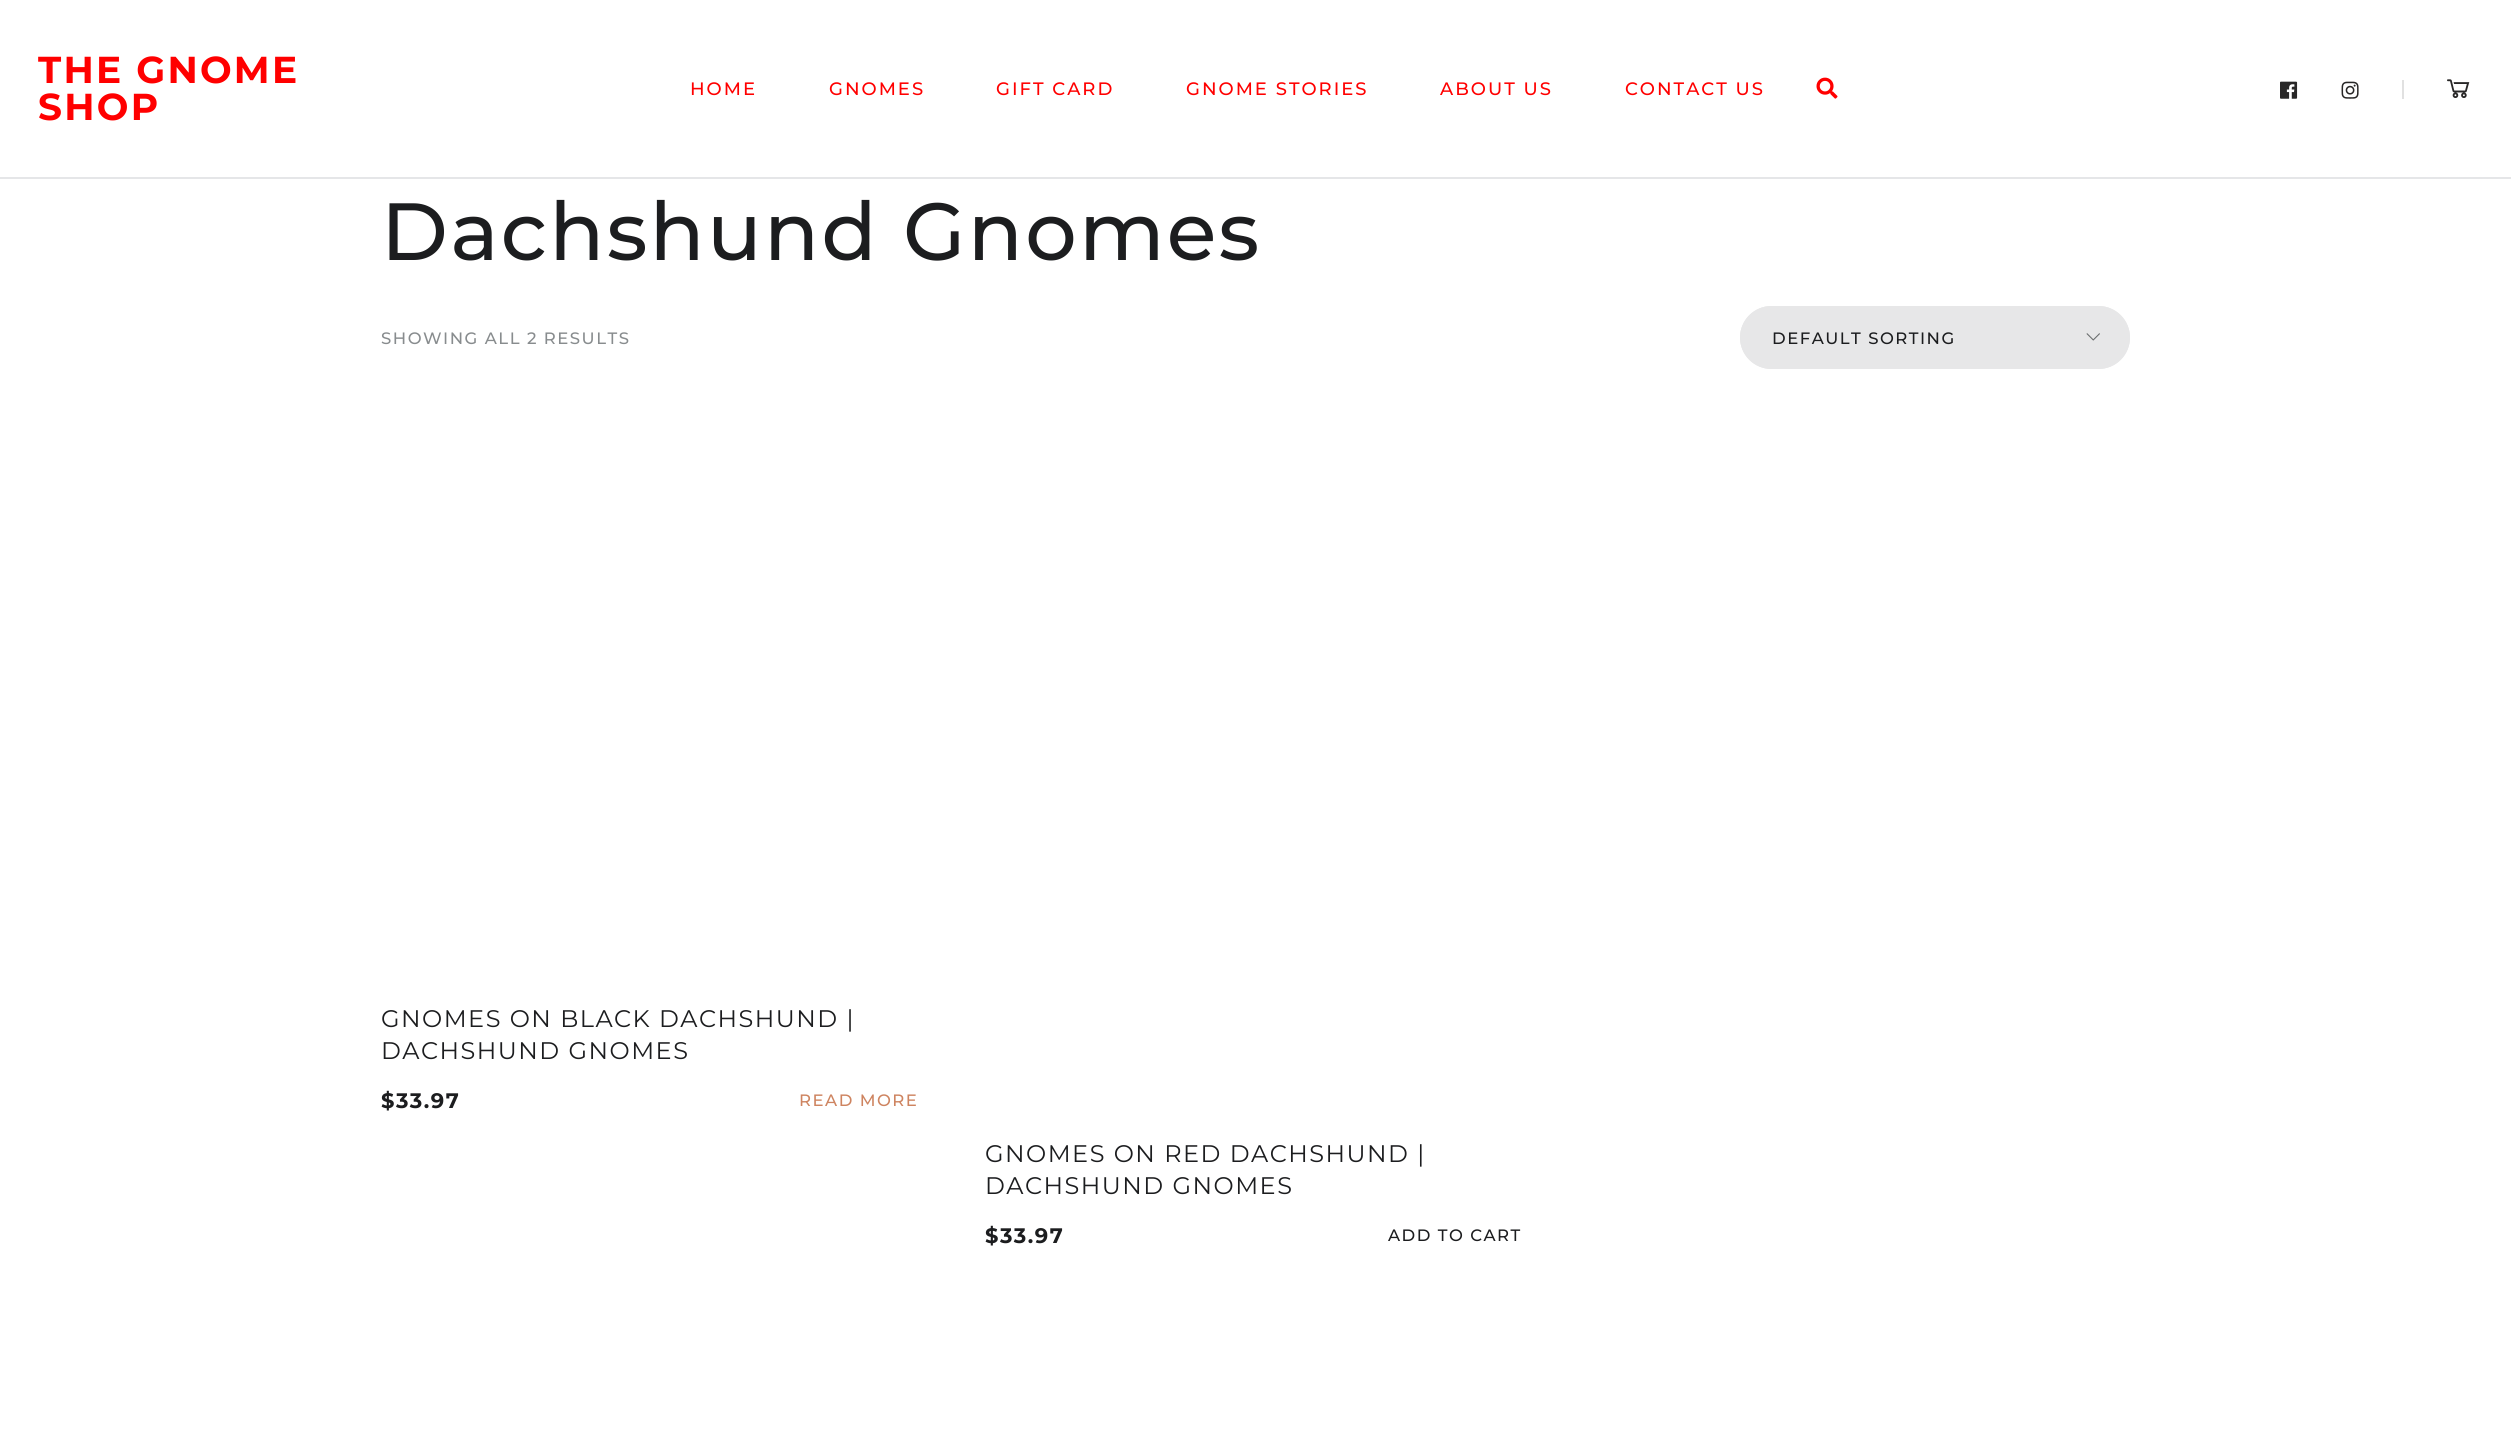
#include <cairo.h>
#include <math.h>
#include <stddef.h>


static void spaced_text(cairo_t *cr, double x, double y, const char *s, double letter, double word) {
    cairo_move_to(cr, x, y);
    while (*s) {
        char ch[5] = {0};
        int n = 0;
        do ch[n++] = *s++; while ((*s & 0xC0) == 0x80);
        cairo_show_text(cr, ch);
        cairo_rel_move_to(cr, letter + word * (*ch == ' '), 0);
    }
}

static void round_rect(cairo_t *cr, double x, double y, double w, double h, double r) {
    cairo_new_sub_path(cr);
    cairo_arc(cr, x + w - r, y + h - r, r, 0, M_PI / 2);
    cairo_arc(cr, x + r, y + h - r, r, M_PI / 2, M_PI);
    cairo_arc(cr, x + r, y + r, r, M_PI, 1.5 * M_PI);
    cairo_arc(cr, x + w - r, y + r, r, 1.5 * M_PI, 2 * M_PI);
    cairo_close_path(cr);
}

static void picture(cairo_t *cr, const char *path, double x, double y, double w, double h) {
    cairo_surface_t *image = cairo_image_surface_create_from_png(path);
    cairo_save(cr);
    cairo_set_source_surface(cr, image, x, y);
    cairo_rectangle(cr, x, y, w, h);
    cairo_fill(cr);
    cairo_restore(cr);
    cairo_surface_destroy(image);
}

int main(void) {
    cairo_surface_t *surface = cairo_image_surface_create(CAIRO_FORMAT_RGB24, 2511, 1451);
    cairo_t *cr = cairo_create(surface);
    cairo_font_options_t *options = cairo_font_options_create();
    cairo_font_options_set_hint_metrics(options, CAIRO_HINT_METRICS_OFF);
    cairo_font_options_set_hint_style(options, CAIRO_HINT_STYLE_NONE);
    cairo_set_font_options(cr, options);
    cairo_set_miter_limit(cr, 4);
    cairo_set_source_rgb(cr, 1, 1, 1);
    cairo_paint(cr);
    cairo_set_source_rgb(cr, 0.898, 0.902, 0.91);
    cairo_rectangle(cr, 0, 177, 2511, 2);
    cairo_fill(cr);
    cairo_select_font_face(cr, "Montserrat", CAIRO_FONT_SLANT_NORMAL, CAIRO_FONT_WEIGHT_BOLD);
    cairo_set_font_size(cr, 37.5);
    cairo_set_source_rgb(cr, 1, 0, 0);
    spaced_text(cr, 38, 83, "THE GNOME", 2.25, 0);
    spaced_text(cr, 38, 120, "SHOP", 2.25, 0);
    cairo_select_font_face(cr, "Montserrat Medium", CAIRO_FONT_SLANT_NORMAL, CAIRO_FONT_WEIGHT_NORMAL);
    cairo_set_font_size(cr, 18);
    spaced_text(cr, 690, 95, "HOME", 2, 0);
    spaced_text(cr, 829, 95, "GNOMES", 2, 0);
    spaced_text(cr, 996, 95, "GIFT CARD", 2, 0);
    spaced_text(cr, 1186, 95, "GNOME STORIES", 2, 0);
    spaced_text(cr, 1440, 95, "ABOUT US", 2, 0);
    spaced_text(cr, 1625, 95, "CONTACT US", 2, 0);
    picture(cr, "img1.png", 1816, 77, 22, 22);
    picture(cr, "img2.png", 2280, 81, 18, 18);
    picture(cr, "img3.png", 2341, 81, 18, 18);
    cairo_set_source_rgb(cr, 0.882, 0.882, 0.882);
    cairo_rectangle(cr, 2402, 80, 2, 19);
    cairo_fill(cr);
    picture(cr, "img4.png", 2447, 79, 23, 19);
    cairo_set_font_size(cr, 81);
    cairo_set_source_rgb(cr, 0.11, 0.114, 0.122);
    spaced_text(cr, 381, 260, "Dachshund Gnomes", 2.25, 0);
    cairo_set_font_size(cr, 16.5);
    cairo_set_source_rgb(cr, 0.533, 0.549, 0.557);
    spaced_text(cr, 381, 344, "SHOWING ALL 2 RESULTS", 1.5, 0);
    cairo_set_source_rgb(cr, 0.906, 0.906, 0.91);
    round_rect(cr, 1740, 306, 390, 63, 31.5);
    cairo_fill(cr);
    picture(cr, "img5.png", 2086, 333, 14, 8);
    round_rect(cr, 1741, 307, 388, 61, 30.5);
    cairo_stroke(cr);
    cairo_set_source_rgb(cr, 0.11, 0.114, 0.122);
    spaced_text(cr, 1772, 344, "DEFAULT SORTING", 1.5, 0);
    cairo_select_font_face(cr, "Montserrat", CAIRO_FONT_SLANT_NORMAL, CAIRO_FONT_WEIGHT_NORMAL);
    cairo_set_font_size(cr, 24);
    spaced_text(cr, 381, 1027, "GNOMES ON BLACK DACHSHUND |", 1.5, 0);
    spaced_text(cr, 381, 1059, "DACHSHUND GNOMES", 1.5, 0);
    cairo_select_font_face(cr, "Montserrat", CAIRO_FONT_SLANT_NORMAL, CAIRO_FONT_WEIGHT_BOLD);
    cairo_set_font_size(cr, 21);
    spaced_text(cr, 381, 1108, "$33.97", 1.5, 0);
    cairo_select_font_face(cr, "Montserrat Medium", CAIRO_FONT_SLANT_NORMAL, CAIRO_FONT_WEIGHT_NORMAL);
    cairo_set_font_size(cr, 16.5);
    cairo_set_source_rgb(cr, 0.808, 0.518, 0.376);
    spaced_text(cr, 799, 1106, "READ MORE", 1.5, 0);
    cairo_select_font_face(cr, "Montserrat", CAIRO_FONT_SLANT_NORMAL, CAIRO_FONT_WEIGHT_NORMAL);
    cairo_set_font_size(cr, 24);
    cairo_set_source_rgb(cr, 0.11, 0.114, 0.122);
    spaced_text(cr, 985, 1162, "GNOMES ON RED DACHSHUND |", 1.5, 0);
    spaced_text(cr, 985, 1194, "DACHSHUND GNOMES", 1.5, 0);
    cairo_select_font_face(cr, "Montserrat", CAIRO_FONT_SLANT_NORMAL, CAIRO_FONT_WEIGHT_BOLD);
    cairo_set_font_size(cr, 21);
    spaced_text(cr, 985, 1243, "$33.97", 1.5, 0);
    cairo_select_font_face(cr, "Montserrat Medium", CAIRO_FONT_SLANT_NORMAL, CAIRO_FONT_WEIGHT_NORMAL);
    cairo_set_font_size(cr, 16.5);
    spaced_text(cr, 1388, 1241, "ADD TO CART", 1.5, 0);
    cairo_surface_write_to_png(surface, "page.png");
    cairo_font_options_destroy(options);
    cairo_destroy(cr);
    cairo_surface_destroy(surface);
    return 0;
}
